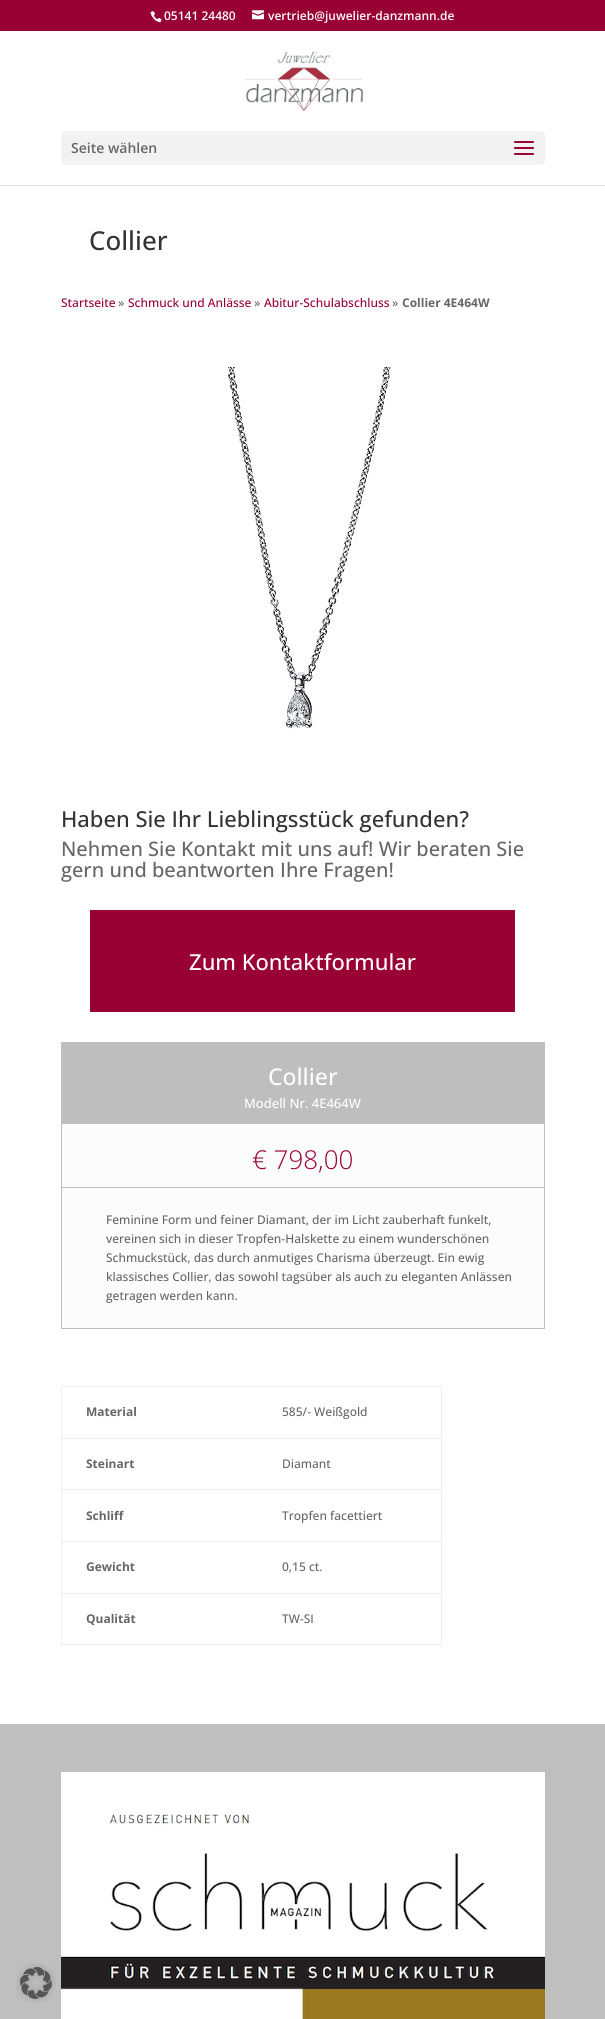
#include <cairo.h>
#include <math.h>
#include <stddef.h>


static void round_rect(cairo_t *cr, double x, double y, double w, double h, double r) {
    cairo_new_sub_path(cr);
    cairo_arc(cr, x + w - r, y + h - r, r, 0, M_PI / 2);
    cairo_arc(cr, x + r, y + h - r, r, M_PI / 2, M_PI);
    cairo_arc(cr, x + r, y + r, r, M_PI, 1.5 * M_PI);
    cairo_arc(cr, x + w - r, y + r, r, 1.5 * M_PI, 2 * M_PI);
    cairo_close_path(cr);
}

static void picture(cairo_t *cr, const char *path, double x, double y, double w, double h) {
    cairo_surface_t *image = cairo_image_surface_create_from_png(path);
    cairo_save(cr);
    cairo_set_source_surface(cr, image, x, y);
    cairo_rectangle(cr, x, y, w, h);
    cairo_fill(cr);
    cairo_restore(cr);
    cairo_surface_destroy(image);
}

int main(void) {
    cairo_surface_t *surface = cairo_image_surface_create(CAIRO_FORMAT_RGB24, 605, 2019);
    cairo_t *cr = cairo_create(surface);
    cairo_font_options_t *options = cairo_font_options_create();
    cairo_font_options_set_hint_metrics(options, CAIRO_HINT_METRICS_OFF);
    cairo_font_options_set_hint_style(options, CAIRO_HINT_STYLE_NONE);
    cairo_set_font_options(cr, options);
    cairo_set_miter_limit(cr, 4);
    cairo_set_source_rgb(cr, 1, 1, 1);
    cairo_paint(cr);
    cairo_set_source_rgb(cr, 0.6, 0, 0.2);
    cairo_rectangle(cr, 0, 0, 605, 31);
    cairo_fill(cr);
    picture(cr, "img1.png", 150, 11, 12, 12);
    cairo_select_font_face(cr, "Open Sans SemiBold", CAIRO_FONT_SLANT_NORMAL, CAIRO_FONT_WEIGHT_NORMAL);
    cairo_set_font_size(cr, 12);
    cairo_set_source_rgb(cr, 1, 1, 1);
    cairo_move_to(cr, 164, 20);
    cairo_show_text(cr, "05141 24480");
    picture(cr, "img2.png", 252, 10, 12, 10);
    cairo_move_to(cr, 268, 20);
    cairo_show_text(cr, "vertrieb@juwelier-danzmann.de");
    cairo_set_source_rgb(cr, 0.902, 0.902, 0.902);
    cairo_rectangle(cr, 0, 185, 605, 1);
    cairo_fill(cr);
    picture(cr, "img3.png", 245, 51, 118, 60);
    cairo_set_source_rgb(cr, 0.949, 0.949, 0.949);
    round_rect(cr, 61, 131, 484, 34, 5);
    cairo_fill(cr);
    cairo_set_font_size(cr, 14);
    cairo_set_source_rgb(cr, 0.4, 0.4, 0.4);
    cairo_move_to(cr, 71, 153);
    cairo_show_text(cr, "Seite wählen");
    picture(cr, "img4.png", 514, 141, 20, 14);
    cairo_select_font_face(cr, "Open Sans Medium", CAIRO_FONT_SLANT_NORMAL, CAIRO_FONT_WEIGHT_NORMAL);
    cairo_set_font_size(cr, 26);
    cairo_set_source_rgb(cr, 0.2, 0.2, 0.2);
    cairo_move_to(cr, 89, 250);
    cairo_show_text(cr, "Collier");
    cairo_set_font_size(cr, 12);
    cairo_set_source_rgb(cr, 0.6, 0, 0.2);
    cairo_move_to(cr, 61, 307);
    cairo_show_text(cr, "Startseite");
    cairo_set_source_rgb(cr, 0.4, 0.4, 0.4);
    cairo_move_to(cr, 118, 307);
    cairo_show_text(cr, "»");
    cairo_set_source_rgb(cr, 0.6, 0, 0.2);
    cairo_move_to(cr, 128, 307);
    cairo_show_text(cr, "Schmuck und Anlässe");
    cairo_set_source_rgb(cr, 0.4, 0.4, 0.4);
    cairo_move_to(cr, 254, 307);
    cairo_show_text(cr, "»");
    cairo_set_source_rgb(cr, 0.6, 0, 0.2);
    cairo_move_to(cr, 264, 307);
    cairo_show_text(cr, "Abitur-Schulabschluss");
    cairo_set_source_rgb(cr, 0.4, 0.4, 0.4);
    cairo_move_to(cr, 392, 307);
    cairo_show_text(cr, "»");
    cairo_select_font_face(cr, "Open Sans", CAIRO_FONT_SLANT_NORMAL, CAIRO_FONT_WEIGHT_BOLD);
    cairo_move_to(cr, 402, 307);
    cairo_show_text(cr, "Collier 4E464W");
    picture(cr, "img5.png", 224, 367, 167, 366);
    cairo_select_font_face(cr, "Open Sans Medium", CAIRO_FONT_SLANT_NORMAL, CAIRO_FONT_WEIGHT_NORMAL);
    cairo_set_font_size(cr, 22);
    cairo_set_source_rgb(cr, 0.2, 0.2, 0.2);
    cairo_move_to(cr, 61, 827);
    cairo_show_text(cr, "Haben Sie Ihr Lieblingsstück gefunden?");
    cairo_set_font_size(cr, 20);
    cairo_set_source_rgb(cr, 0.4, 0.4, 0.4);
    cairo_move_to(cr, 61, 856);
    cairo_show_text(cr, "Nehmen Sie Kontakt mit uns auf! Wir beraten Sie");
    cairo_move_to(cr, 61, 877);
    cairo_show_text(cr, "gern und beantworten Ihre Fragen!");
    cairo_set_source_rgb(cr, 0.6, 0, 0.2);
    cairo_rectangle(cr, 90, 910, 425, 102);
    cairo_fill(cr);
    cairo_set_font_size(cr, 22);
    cairo_set_source_rgb(cr, 1, 1, 1);
    cairo_move_to(cr, 189, 970);
    cairo_show_text(cr, "Zum Kontaktformular");
    cairo_set_source_rgb(cr, 0.988, 0.988, 0.988);
    cairo_rectangle(cr, 62, 1124, 482, 204);
    cairo_fill(cr);
    cairo_rectangle(cr, 61.5, 1042.5, 483, 286);
    cairo_set_source_rgb(cr, 0.745, 0.745, 0.745);
    cairo_set_line_width(cr, 1);
    cairo_stroke(cr);
    cairo_rectangle(cr, 62, 1043, 482, 81);
    cairo_fill(cr);
    cairo_set_font_size(cr, 23);
    cairo_set_source_rgb(cr, 1, 1, 1);
    cairo_move_to(cr, 268, 1085);
    cairo_show_text(cr, "Collier");
    cairo_set_font_size(cr, 13);
    cairo_move_to(cr, 244, 1108);
    cairo_show_text(cr, "Modell Nr. 4E464W");
    cairo_set_source_rgb(cr, 0.745, 0.745, 0.745);
    cairo_rectangle(cr, 62, 1187, 482, 1);
    cairo_fill(cr);
    cairo_select_font_face(cr, "Open Sans Light", CAIRO_FONT_SLANT_NORMAL, CAIRO_FONT_WEIGHT_NORMAL);
    cairo_set_font_size(cr, 26);
    cairo_set_source_rgb(cr, 0.6, 0, 0.2);
    cairo_move_to(cr, 252, 1169);
    cairo_show_text(cr, "€ 798,00");
    cairo_select_font_face(cr, "Open Sans Medium", CAIRO_FONT_SLANT_NORMAL, CAIRO_FONT_WEIGHT_NORMAL);
    cairo_set_font_size(cr, 12);
    cairo_set_source_rgb(cr, 0.4, 0.4, 0.4);
    cairo_move_to(cr, 106, 1224);
    cairo_show_text(cr, "Feminine Form und feiner Diamant, der im Licht zauberhaft funkelt,");
    cairo_move_to(cr, 106, 1243);
    cairo_show_text(cr, "vereinen sich in dieser Tropfen-Halskette zu einem wunderschönen");
    cairo_move_to(cr, 106, 1262);
    cairo_show_text(cr, "Schmuckstück, das durch anmutiges Charisma überzeugt. Ein ewig");
    cairo_move_to(cr, 106, 1281);
    cairo_show_text(cr, "klassisches Collier, das sowohl tagsüber als auch zu eleganten Anlässen");
    cairo_move_to(cr, 106, 1300);
    cairo_show_text(cr, "getragen werden kann.");
    cairo_set_source_rgb(cr, 0.933, 0.933, 0.933);
    cairo_rectangle(cr, 61, 1386, 381, 1);
    cairo_fill(cr);
    cairo_rectangle(cr, 441, 1386, 1, 259);
    cairo_fill(cr);
    cairo_rectangle(cr, 61, 1644, 381, 1);
    cairo_fill(cr);
    cairo_rectangle(cr, 61, 1386, 1, 259);
    cairo_fill(cr);
    cairo_select_font_face(cr, "Open Sans", CAIRO_FONT_SLANT_NORMAL, CAIRO_FONT_WEIGHT_BOLD);
    cairo_set_source_rgb(cr, 0.4, 0.4, 0.4);
    cairo_move_to(cr, 86, 1416);
    cairo_show_text(cr, "Material");
    cairo_select_font_face(cr, "Open Sans Medium", CAIRO_FONT_SLANT_NORMAL, CAIRO_FONT_WEIGHT_NORMAL);
    cairo_move_to(cr, 282, 1416);
    cairo_show_text(cr, "585/- Weißgold");
    cairo_select_font_face(cr, "Open Sans", CAIRO_FONT_SLANT_NORMAL, CAIRO_FONT_WEIGHT_BOLD);
    cairo_move_to(cr, 86, 1468);
    cairo_show_text(cr, "Steinart");
    cairo_set_source_rgb(cr, 0.933, 0.933, 0.933);
    cairo_rectangle(cr, 61, 1438, 381, 1);
    cairo_fill(cr);
    cairo_select_font_face(cr, "Open Sans Medium", CAIRO_FONT_SLANT_NORMAL, CAIRO_FONT_WEIGHT_NORMAL);
    cairo_set_source_rgb(cr, 0.4, 0.4, 0.4);
    cairo_move_to(cr, 282, 1468);
    cairo_show_text(cr, "Diamant");
    cairo_select_font_face(cr, "Open Sans", CAIRO_FONT_SLANT_NORMAL, CAIRO_FONT_WEIGHT_BOLD);
    cairo_move_to(cr, 86, 1520);
    cairo_show_text(cr, "Schliff");
    cairo_set_source_rgb(cr, 0.933, 0.933, 0.933);
    cairo_rectangle(cr, 61, 1489, 381, 1);
    cairo_fill(cr);
    cairo_select_font_face(cr, "Open Sans Medium", CAIRO_FONT_SLANT_NORMAL, CAIRO_FONT_WEIGHT_NORMAL);
    cairo_set_source_rgb(cr, 0.4, 0.4, 0.4);
    cairo_move_to(cr, 282, 1520);
    cairo_show_text(cr, "Tropfen facettiert");
    cairo_select_font_face(cr, "Open Sans", CAIRO_FONT_SLANT_NORMAL, CAIRO_FONT_WEIGHT_BOLD);
    cairo_move_to(cr, 86, 1571);
    cairo_show_text(cr, "Gewicht");
    cairo_set_source_rgb(cr, 0.933, 0.933, 0.933);
    cairo_rectangle(cr, 61, 1541, 381, 1);
    cairo_fill(cr);
    cairo_select_font_face(cr, "Open Sans Medium", CAIRO_FONT_SLANT_NORMAL, CAIRO_FONT_WEIGHT_NORMAL);
    cairo_set_source_rgb(cr, 0.4, 0.4, 0.4);
    cairo_move_to(cr, 282, 1571);
    cairo_show_text(cr, "0,15 ct.");
    cairo_select_font_face(cr, "Open Sans", CAIRO_FONT_SLANT_NORMAL, CAIRO_FONT_WEIGHT_BOLD);
    cairo_move_to(cr, 86, 1623);
    cairo_show_text(cr, "Qualität");
    cairo_set_source_rgb(cr, 0.933, 0.933, 0.933);
    cairo_rectangle(cr, 61, 1593, 381, 1);
    cairo_fill(cr);
    cairo_select_font_face(cr, "Open Sans Medium", CAIRO_FONT_SLANT_NORMAL, CAIRO_FONT_WEIGHT_NORMAL);
    cairo_set_source_rgb(cr, 0.4, 0.4, 0.4);
    cairo_move_to(cr, 282, 1623);
    cairo_show_text(cr, "TW-SI");
    cairo_set_source_rgb(cr, 0.749, 0.749, 0.749);
    cairo_rectangle(cr, 0, 1724, 605, 295);
    cairo_fill(cr);
    picture(cr, "img6.png", 61, 1772, 484, 247);
    picture(cr, "img7.png", 16, 1963, 40, 40);
    cairo_surface_write_to_png(surface, "page.png");
    cairo_font_options_destroy(options);
    cairo_destroy(cr);
    cairo_surface_destroy(surface);
    return 0;
}
